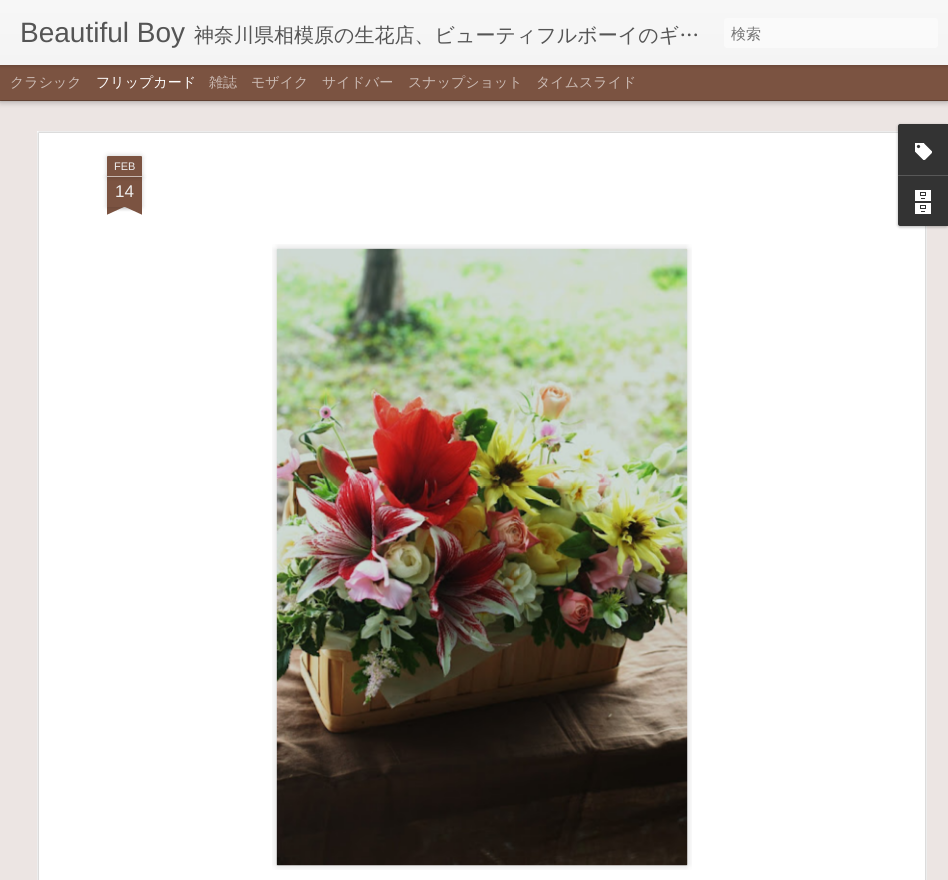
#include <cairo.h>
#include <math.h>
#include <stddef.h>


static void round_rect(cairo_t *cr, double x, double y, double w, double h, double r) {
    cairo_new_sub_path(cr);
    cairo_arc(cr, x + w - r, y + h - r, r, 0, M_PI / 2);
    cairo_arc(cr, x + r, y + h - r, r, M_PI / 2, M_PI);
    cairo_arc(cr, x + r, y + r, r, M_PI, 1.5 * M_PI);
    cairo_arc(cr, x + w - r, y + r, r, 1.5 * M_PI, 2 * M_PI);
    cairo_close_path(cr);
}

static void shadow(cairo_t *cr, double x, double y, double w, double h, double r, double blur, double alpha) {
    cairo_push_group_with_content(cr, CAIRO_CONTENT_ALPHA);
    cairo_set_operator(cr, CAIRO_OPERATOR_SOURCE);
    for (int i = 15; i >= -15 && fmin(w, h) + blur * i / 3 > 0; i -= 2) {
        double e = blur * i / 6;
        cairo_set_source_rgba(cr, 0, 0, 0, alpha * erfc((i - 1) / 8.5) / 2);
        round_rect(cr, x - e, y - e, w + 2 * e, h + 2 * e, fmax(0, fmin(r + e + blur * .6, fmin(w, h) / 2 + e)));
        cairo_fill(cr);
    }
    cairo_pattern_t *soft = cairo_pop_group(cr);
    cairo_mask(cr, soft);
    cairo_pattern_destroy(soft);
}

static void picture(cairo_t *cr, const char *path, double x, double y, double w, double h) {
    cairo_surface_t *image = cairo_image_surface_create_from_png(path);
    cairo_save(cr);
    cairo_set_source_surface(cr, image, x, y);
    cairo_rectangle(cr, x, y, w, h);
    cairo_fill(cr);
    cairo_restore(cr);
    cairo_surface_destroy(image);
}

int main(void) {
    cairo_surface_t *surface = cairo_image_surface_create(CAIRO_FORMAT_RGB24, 948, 880);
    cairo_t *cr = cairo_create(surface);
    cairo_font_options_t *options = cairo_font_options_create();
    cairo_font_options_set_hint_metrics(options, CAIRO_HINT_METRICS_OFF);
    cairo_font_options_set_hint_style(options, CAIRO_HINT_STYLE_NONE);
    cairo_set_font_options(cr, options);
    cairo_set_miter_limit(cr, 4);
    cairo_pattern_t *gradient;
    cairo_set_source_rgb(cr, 0.482, 0.325, 0.255);
    cairo_paint(cr);
    cairo_set_source_rgb(cr, 0.922, 0.898, 0.89);
    cairo_rectangle(cr, 0, 101, 948, 779);
    cairo_fill(cr);
    cairo_set_source_rgb(cr, 0, 0, 0);
    shadow(cr, 0, 65, 948, 35, 0, 4, 0.5);
    cairo_set_source_rgb(cr, 0.482, 0.325, 0.255);
    cairo_rectangle(cr, 0, 65, 948, 35);
    cairo_fill(cr);
    cairo_set_source_rgb(cr, 0, 0, 0);
    shadow(cr, 0, 0, 948, 65, 0, 2.5, 0.3);
    gradient = cairo_pattern_create_linear(0, 0, 0, 65);
    cairo_pattern_add_color_stop_rgba(gradient, 0, 0.969, 0.969, 0.969, 1);
    cairo_pattern_add_color_stop_rgba(gradient, 1, 0.957, 0.957, 0.957, 1);
    cairo_set_source(cr, gradient);
    cairo_pattern_destroy(gradient);
    cairo_rectangle(cr, 0, 0, 948, 65);
    cairo_fill(cr);
    cairo_select_font_face(cr, "Liberation Sans", CAIRO_FONT_SLANT_NORMAL, CAIRO_FONT_WEIGHT_NORMAL);
    cairo_set_font_size(cr, 28);
    cairo_set_source_rgb(cr, 0.333, 0.333, 0.333);
    cairo_move_to(cr, 20, 42);
    cairo_show_text(cr, "Beautiful Boy");
    cairo_select_font_face(cr, "WenQuanYi Zen Hei Medium", CAIRO_FONT_SLANT_NORMAL, CAIRO_FONT_WEIGHT_NORMAL);
    cairo_set_font_size(cr, 20);
    cairo_move_to(cr, 194, 42);
    cairo_show_text(cr, "神奈川県相模原の生花店、ビューティフルボーイのギ…");
    cairo_set_source_rgb(cr, 0.98, 0.98, 0.98);
    round_rect(cr, 724, 18, 214, 30, 3);
    cairo_fill(cr);
    cairo_set_font_size(cr, 15);
    cairo_set_source_rgb(cr, 0.459, 0.459, 0.459);
    cairo_move_to(cr, 731, 39);
    cairo_show_text(cr, "検索");
    cairo_set_font_size(cr, 14);
    cairo_set_source_rgb(cr, 0.792, 0.729, 0.702);
    cairo_move_to(cr, 10, 87);
    cairo_show_text(cr, "クラシック");
    cairo_set_source_rgb(cr, 1, 1, 1);
    cairo_move_to(cr, 96, 87);
    cairo_show_text(cr, "フリップカード");
    cairo_set_source_rgb(cr, 0.792, 0.729, 0.702);
    cairo_move_to(cr, 209, 87);
    cairo_show_text(cr, "雑誌");
    cairo_move_to(cr, 251, 87);
    cairo_show_text(cr, "モザイク");
    cairo_move_to(cr, 322, 87);
    cairo_show_text(cr, "サイドバー");
    cairo_move_to(cr, 408, 87);
    cairo_show_text(cr, "スナップショット");
    cairo_move_to(cr, 536, 87);
    cairo_show_text(cr, "タイムスライド");
    cairo_set_source_rgb(cr, 1, 1, 1);
    cairo_rectangle(cr, 37, 131, 890, 749);
    cairo_fill(cr);
    picture(cr, "img1.png", 37, 131, 890, 749);
    cairo_set_source_rgb(cr, 0, 0, 0);
    shadow(cr, 107, 177, 35, 30, 0, 2.5, 0.2);
    cairo_set_source_rgb(cr, 0.482, 0.325, 0.255);
    cairo_rectangle(cr, 107, 177, 35, 30);
    cairo_fill(cr);
    cairo_set_source_rgb(cr, 0, 0, 0);
    shadow(cr, 107, 156, 35, 21, 1, 2.5, 0.2);
    cairo_set_source_rgb(cr, 0.482, 0.325, 0.255);
    cairo_new_path(cr);
    cairo_move_to(cr, 108, 156);
    cairo_line_to(cr, 141, 156);
    cairo_curve_to(cr, 141.5, 156, 142, 156.5, 142, 157);
    cairo_line_to(cr, 142, 177);
    cairo_line_to(cr, 107, 177);
    cairo_line_to(cr, 107, 157);
    cairo_curve_to(cr, 107, 156.5, 107.5, 156, 108, 156);
    cairo_close_path(cr);
    cairo_fill(cr);
    cairo_set_source_rgb(cr, 0.792, 0.729, 0.702);
    cairo_rectangle(cr, 107, 176, 35, 1);
    cairo_fill(cr);
    cairo_select_font_face(cr, "Liberation Sans", CAIRO_FONT_SLANT_NORMAL, CAIRO_FONT_WEIGHT_NORMAL);
    cairo_set_font_size(cr, 11);
    cairo_set_source_rgb(cr, 0.933, 0.933, 0.933);
    cairo_move_to(cr, 114, 170);
    cairo_show_text(cr, "FEB");
    cairo_set_font_size(cr, 17);
    cairo_move_to(cr, 115, 197);
    cairo_show_text(cr, "14");
    cairo_save(cr);
    cairo_rectangle(cr, 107, 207, 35, 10);
    cairo_clip(cr);
    cairo_set_source_rgb(cr, 0, 0, 0);
    shadow(cr, 98, 197, 50, 10, 0, 2.5, 0.2);
    cairo_restore(cr);
    cairo_save(cr);
    cairo_rectangle(cr, 107, 207, 35, 10);
    cairo_clip(cr);
    cairo_set_source_rgb(cr, 0.482, 0.325, 0.255);
    cairo_new_path(cr);
    cairo_move_to(cr, 98, 208);
    cairo_line_to(cr, 144, 187);
    cairo_line_to(cr, 148, 196);
    cairo_line_to(cr, 102, 217);
    cairo_close_path(cr);
    cairo_fill(cr);
    cairo_restore(cr);
    cairo_save(cr);
    cairo_rectangle(cr, 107, 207, 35, 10);
    cairo_clip(cr);
    cairo_set_source_rgb(cr, 0, 0, 0);
    shadow(cr, 101, 197, 50, 10, 0, 2.5, 0.2);
    cairo_restore(cr);
    cairo_save(cr);
    cairo_rectangle(cr, 107, 207, 35, 10);
    cairo_clip(cr);
    cairo_set_source_rgb(cr, 0.482, 0.325, 0.255);
    cairo_new_path(cr);
    cairo_move_to(cr, 105, 187);
    cairo_line_to(cr, 151, 208);
    cairo_line_to(cr, 147, 217);
    cairo_line_to(cr, 101, 196);
    cairo_close_path(cr);
    cairo_fill(cr);
    cairo_restore(cr);
    picture(cr, "img2.png", 272, 244, 420, 626);
    picture(cr, "img3.png", 276, 248, 412, 618);
    cairo_set_source_rgb(cr, 0, 0, 0);
    shadow(cr, 898, 125, 50, 102, 2, 1.5, 0.3);
    cairo_set_source_rgb(cr, 0.2, 0.2, 0.2);
    cairo_new_path(cr);
    cairo_move_to(cr, 900, 124);
    cairo_line_to(cr, 948, 124);
    cairo_line_to(cr, 948, 175);
    cairo_line_to(cr, 898, 175);
    cairo_line_to(cr, 898, 126);
    cairo_curve_to(cr, 898, 125, 899, 124, 900, 124);
    cairo_close_path(cr);
    cairo_fill(cr);
    picture(cr, "img4.png", 915, 143, 17, 17);
    cairo_new_path(cr);
    cairo_move_to(cr, 898, 175);
    cairo_line_to(cr, 948, 175);
    cairo_line_to(cr, 948, 226);
    cairo_line_to(cr, 900, 226);
    cairo_curve_to(cr, 899, 226, 898, 225, 898, 224);
    cairo_close_path(cr);
    cairo_fill(cr);
    cairo_set_source_rgb(cr, 0.345, 0.345, 0.345);
    cairo_rectangle(cr, 898, 175, 50, 1);
    cairo_fill(cr);
    picture(cr, "img5.png", 915, 190, 16, 24);
    cairo_surface_write_to_png(surface, "page.png");
    cairo_font_options_destroy(options);
    cairo_destroy(cr);
    cairo_surface_destroy(surface);
    return 0;
}
